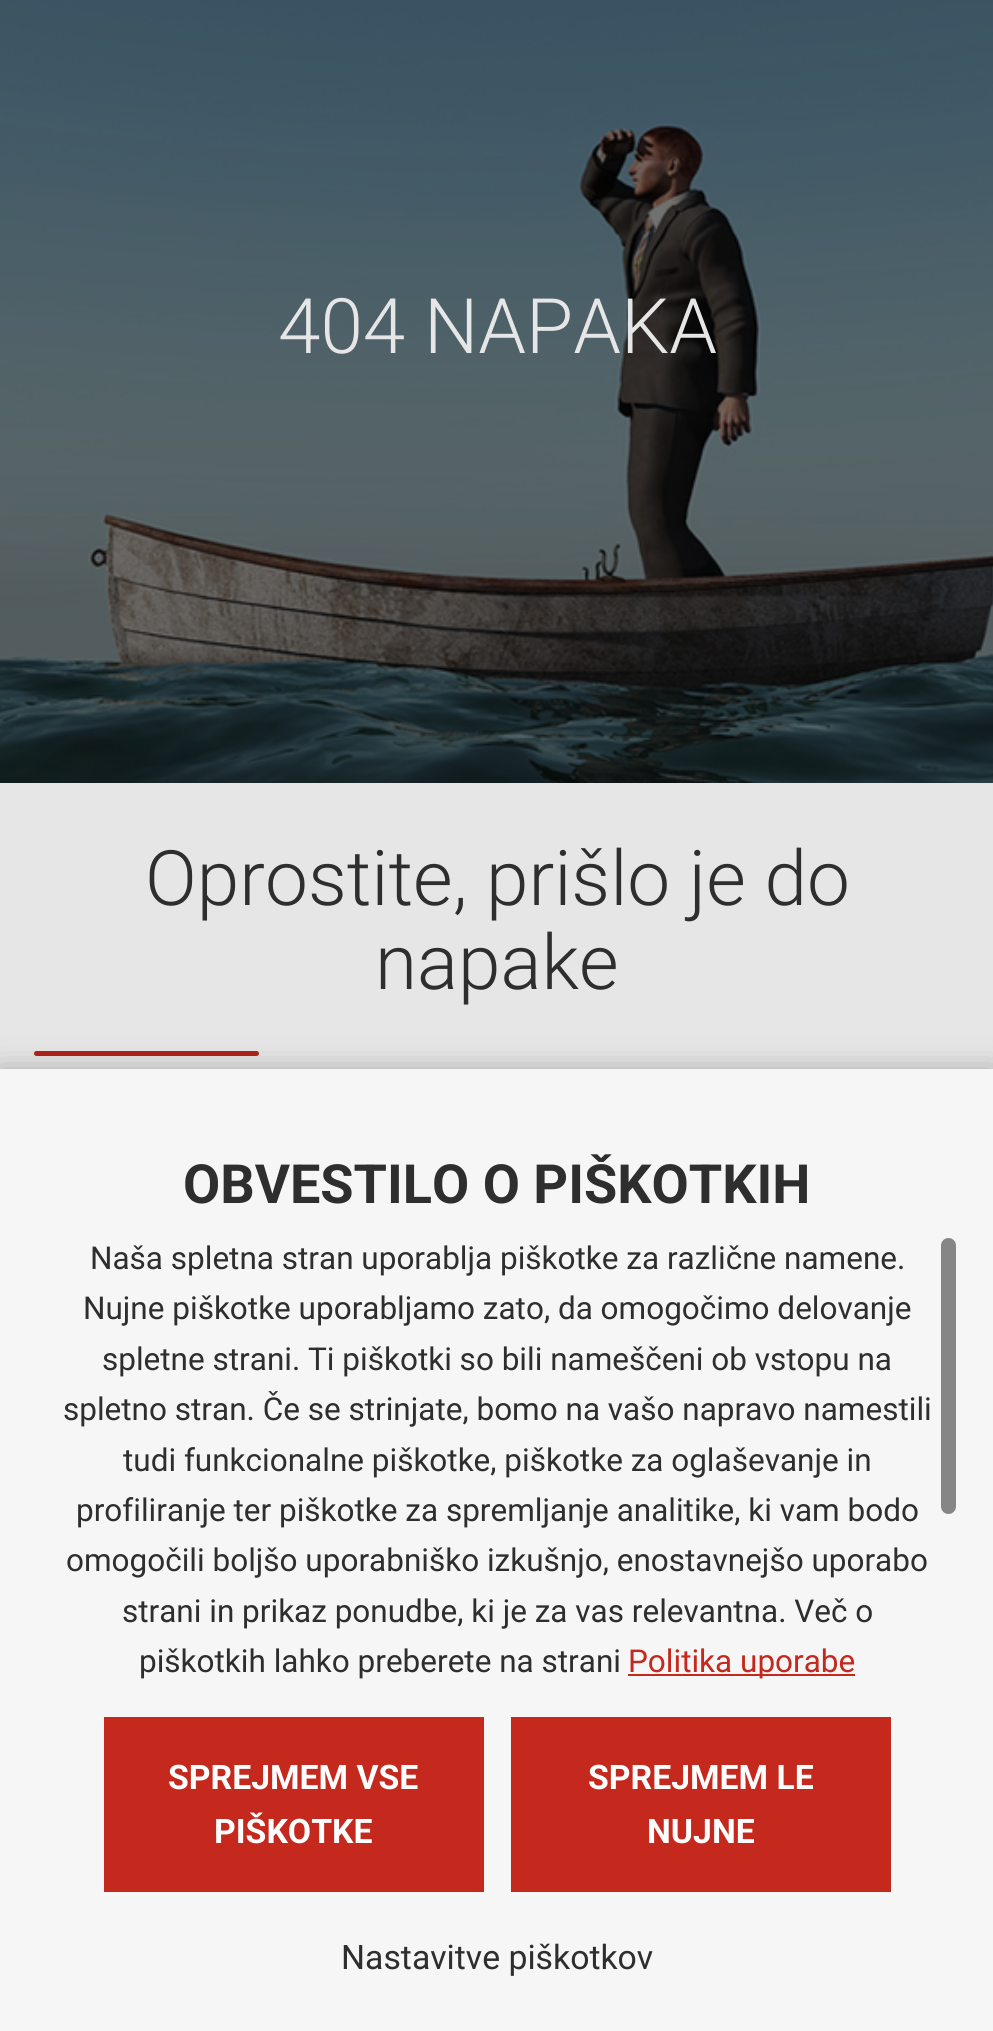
#include <cairo.h>
#include <math.h>
#include <stddef.h>


static void round_rect(cairo_t *cr, double x, double y, double w, double h, double r) {
    cairo_new_sub_path(cr);
    cairo_arc(cr, x + w - r, y + h - r, r, 0, M_PI / 2);
    cairo_arc(cr, x + r, y + h - r, r, M_PI / 2, M_PI);
    cairo_arc(cr, x + r, y + r, r, M_PI, 1.5 * M_PI);
    cairo_arc(cr, x + w - r, y + r, r, 1.5 * M_PI, 2 * M_PI);
    cairo_close_path(cr);
}

static void shadow(cairo_t *cr, double x, double y, double w, double h, double r, double blur, double alpha) {
    cairo_push_group_with_content(cr, CAIRO_CONTENT_ALPHA);
    cairo_set_operator(cr, CAIRO_OPERATOR_SOURCE);
    for (int i = 15; i >= -15 && fmin(w, h) + blur * i / 3 > 0; i -= 2) {
        double e = blur * i / 6;
        cairo_set_source_rgba(cr, 0, 0, 0, alpha * erfc((i - 1) / 8.5) / 2);
        round_rect(cr, x - e, y - e, w + 2 * e, h + 2 * e, fmax(0, fmin(r + e + blur * .6, fmin(w, h) / 2 + e)));
        cairo_fill(cr);
    }
    cairo_pattern_t *soft = cairo_pop_group(cr);
    cairo_mask(cr, soft);
    cairo_pattern_destroy(soft);
}

static void picture(cairo_t *cr, const char *path, double x, double y, double w, double h) {
    cairo_surface_t *image = cairo_image_surface_create_from_png(path);
    cairo_save(cr);
    cairo_set_source_surface(cr, image, x, y);
    cairo_rectangle(cr, x, y, w, h);
    cairo_fill(cr);
    cairo_restore(cr);
    cairo_surface_destroy(image);
}

int main(void) {
    cairo_surface_t *surface = cairo_image_surface_create(CAIRO_FORMAT_RGB24, 993, 2031);
    cairo_t *cr = cairo_create(surface);
    cairo_font_options_t *options = cairo_font_options_create();
    cairo_font_options_set_hint_metrics(options, CAIRO_HINT_METRICS_OFF);
    cairo_font_options_set_hint_style(options, CAIRO_HINT_STYLE_NONE);
    cairo_set_font_options(cr, options);
    cairo_set_miter_limit(cr, 4);
    cairo_set_source_rgb(cr, 0.902, 0.902, 0.902);
    cairo_paint(cr);
    picture(cr, "img1.png", 0, 0, 993, 783);
    cairo_select_font_face(cr, "Roboto Light", CAIRO_FONT_SLANT_NORMAL, CAIRO_FONT_WEIGHT_NORMAL);
    cairo_set_font_size(cr, 76.5);
    cairo_set_source_rgb(cr, 0.902, 0.902, 0.902);
    cairo_move_to(cr, 278, 353);
    cairo_show_text(cr, "404 NAPAKA");
    cairo_set_source_rgb(cr, 0.18, 0.18, 0.18);
    cairo_move_to(cr, 145, 905);
    cairo_show_text(cr, "Oprostite, prišlo je do");
    cairo_move_to(cr, 375, 989);
    cairo_show_text(cr, "napake");
    cairo_set_source_rgb(cr, 0.694, 0.141, 0.098);
    round_rect(cr, 34, 1051, 225, 5, 2.5);
    cairo_fill(cr);
    cairo_set_source_rgb(cr, 0, 0, 0);
    shadow(cr, 0, 1076, 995, 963, 0, 17, 0.4);
    cairo_set_source_rgb(cr, 0.961, 0.961, 0.961);
    cairo_rectangle(cr, 0, 1069, 993, 962);
    cairo_fill(cr);
    cairo_select_font_face(cr, "Roboto", CAIRO_FONT_SLANT_NORMAL, CAIRO_FONT_WEIGHT_BOLD);
    cairo_set_font_size(cr, 54);
    cairo_set_source_rgb(cr, 0.18, 0.18, 0.18);
    cairo_move_to(cr, 183, 1203);
    cairo_show_text(cr, "OBVESTILO O PIŠKOTKIH");
    cairo_select_font_face(cr, "Roboto", CAIRO_FONT_SLANT_NORMAL, CAIRO_FONT_WEIGHT_NORMAL);
    cairo_set_font_size(cr, 31.5);
    cairo_move_to(cr, 90, 1269);
    cairo_show_text(cr, "Naša spletna stran uporablja piškotke za različne namene.");
    cairo_move_to(cr, 83, 1319);
    cairo_show_text(cr, "Nujne piškotke uporabljamo zato, da omogočimo delovanje");
    cairo_move_to(cr, 102, 1370);
    cairo_show_text(cr, "spletne strani. Ti piškotki so bili nameščeni ob vstopu na");
    cairo_move_to(cr, 63, 1420);
    cairo_show_text(cr, "spletno stran. Če se strinjate, bomo na vašo napravo namestili");
    cairo_move_to(cr, 123, 1471);
    cairo_show_text(cr, "tudi funkcionalne piškotke, piškotke za oglaševanje in");
    cairo_move_to(cr, 76, 1521);
    cairo_show_text(cr, "profiliranje ter piškotke za spremljanje analitike, ki vam bodo");
    cairo_move_to(cr, 66, 1571);
    cairo_show_text(cr, "omogočili boljšo uporabniško izkušnjo, enostavnejšo uporabo");
    cairo_move_to(cr, 122, 1622);
    cairo_show_text(cr, "strani in prikaz ponudbe, ki je za vas relevantna. Več o");
    cairo_move_to(cr, 139, 1672);
    cairo_show_text(cr, "piškotkih lahko preberete na strani");
    cairo_set_source_rgb(cr, 0.773, 0.157, 0.11);
    cairo_rectangle(cr, 628, 1674, 227, 2);
    cairo_fill(cr);
    cairo_move_to(cr, 628, 1672);
    cairo_show_text(cr, "Politika uporabe");
    cairo_set_source_rgb(cr, 0.525, 0.525, 0.525);
    round_rect(cr, 941, 1238, 15, 276, 7.5);
    cairo_fill(cr);
    cairo_set_source_rgb(cr, 0.773, 0.157, 0.11);
    cairo_rectangle(cr, 104, 1717, 380, 175);
    cairo_fill(cr);
    cairo_select_font_face(cr, "Roboto", CAIRO_FONT_SLANT_NORMAL, CAIRO_FONT_WEIGHT_BOLD);
    cairo_set_font_size(cr, 33.75);
    cairo_set_source_rgb(cr, 1, 1, 1);
    cairo_move_to(cr, 168, 1789);
    cairo_show_text(cr, "SPREJMEM VSE");
    cairo_move_to(cr, 214, 1843);
    cairo_show_text(cr, "PIŠKOTKE");
    cairo_set_source_rgb(cr, 0.773, 0.157, 0.11);
    cairo_rectangle(cr, 511, 1717, 380, 175);
    cairo_fill(cr);
    cairo_set_source_rgb(cr, 1, 1, 1);
    cairo_move_to(cr, 588, 1789);
    cairo_show_text(cr, "SPREJMEM LE");
    cairo_move_to(cr, 647, 1843);
    cairo_show_text(cr, "NUJNE");
    cairo_select_font_face(cr, "Roboto", CAIRO_FONT_SLANT_NORMAL, CAIRO_FONT_WEIGHT_NORMAL);
    cairo_set_source_rgb(cr, 0.18, 0.18, 0.18);
    cairo_move_to(cr, 341, 1969);
    cairo_show_text(cr, "Nastavitve piškotkov");
    cairo_surface_write_to_png(surface, "page.png");
    cairo_font_options_destroy(options);
    cairo_destroy(cr);
    cairo_surface_destroy(surface);
    return 0;
}
